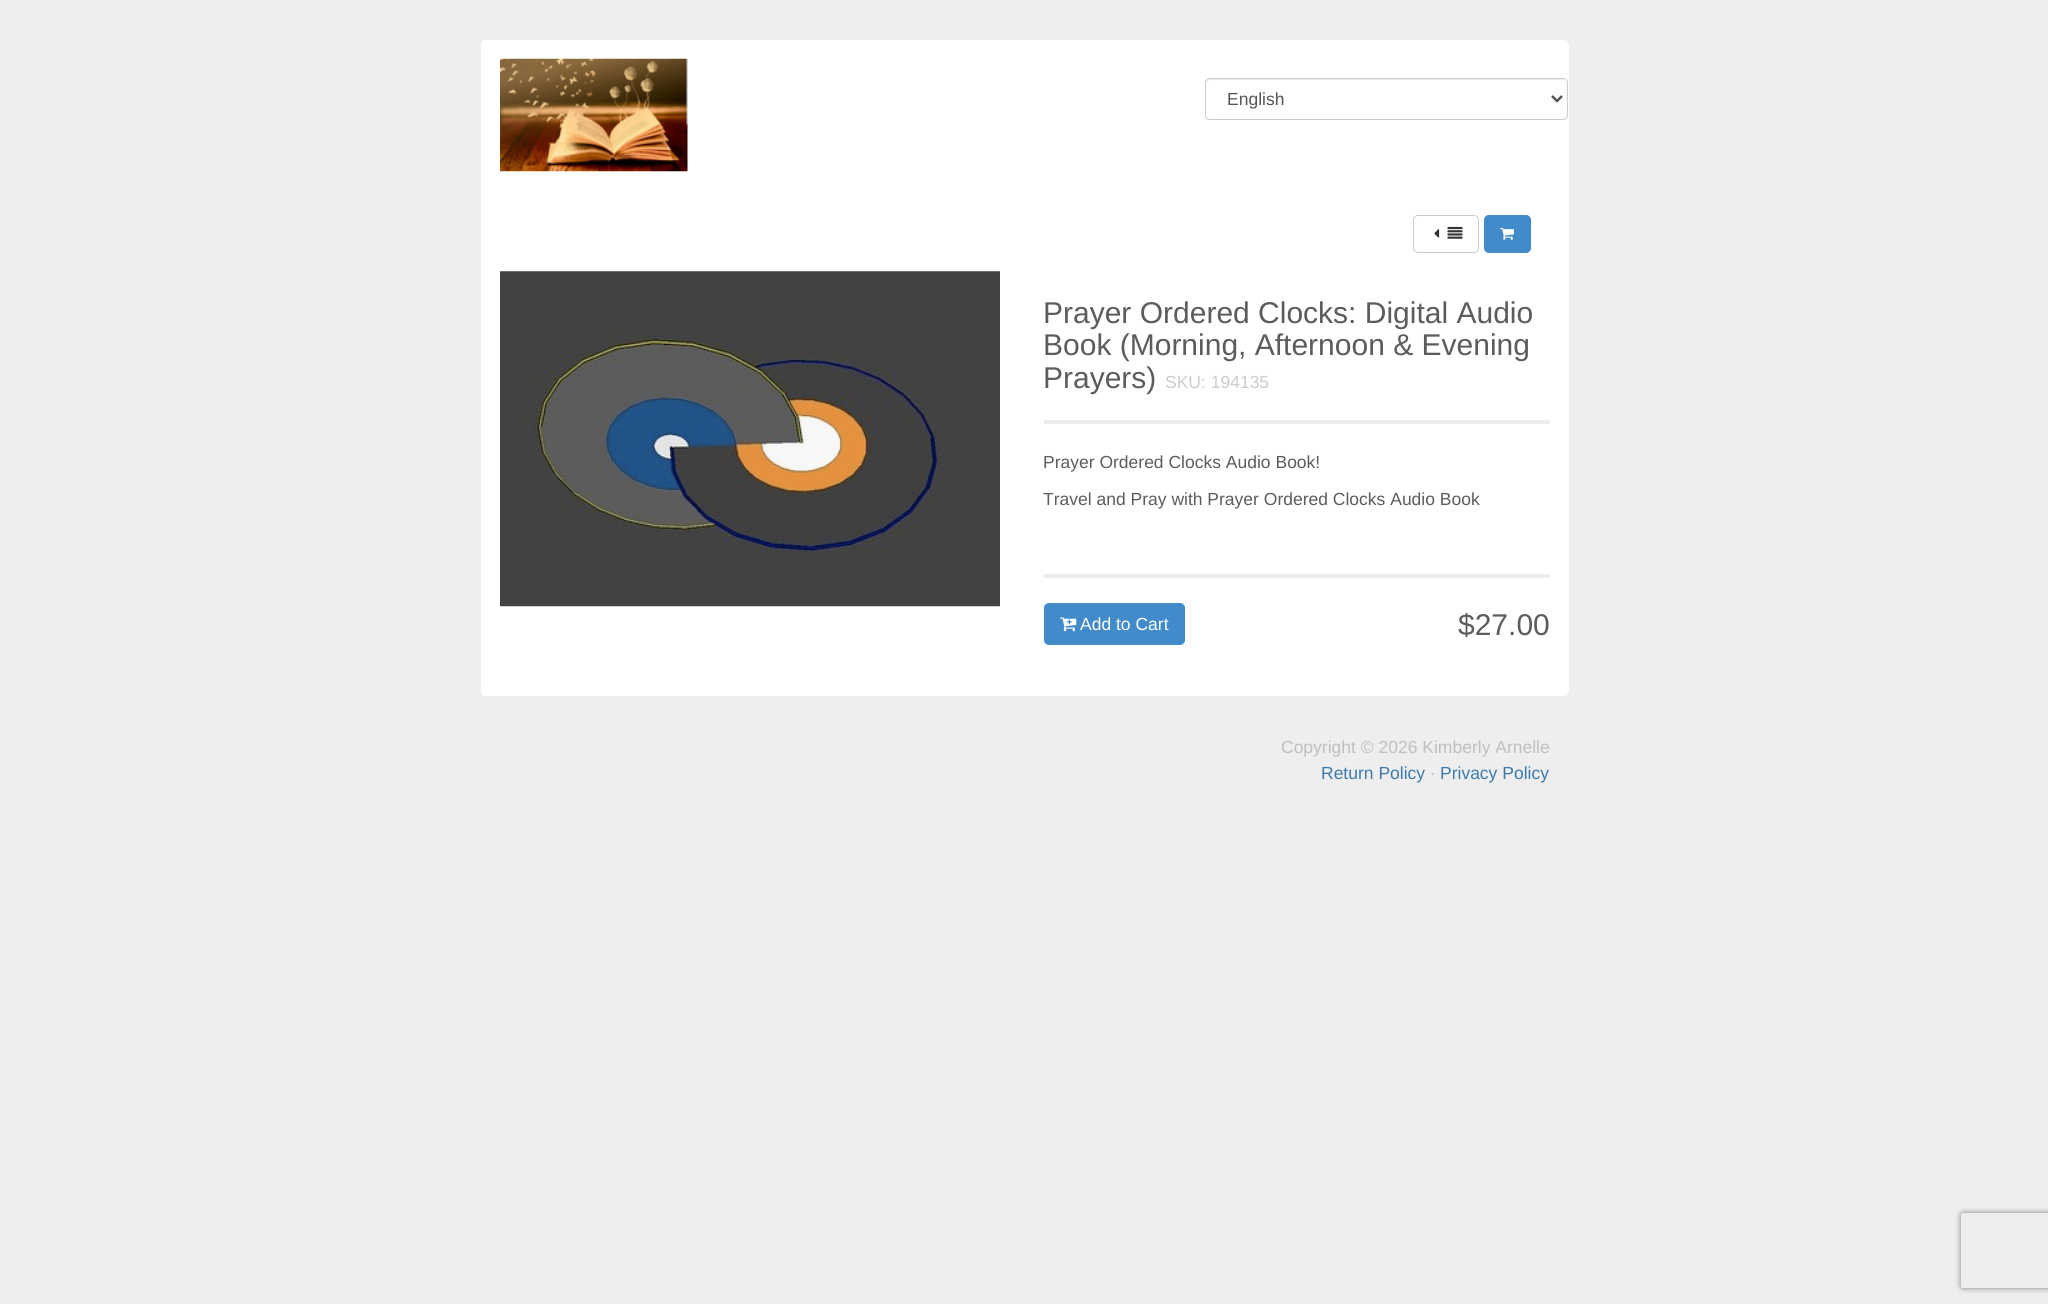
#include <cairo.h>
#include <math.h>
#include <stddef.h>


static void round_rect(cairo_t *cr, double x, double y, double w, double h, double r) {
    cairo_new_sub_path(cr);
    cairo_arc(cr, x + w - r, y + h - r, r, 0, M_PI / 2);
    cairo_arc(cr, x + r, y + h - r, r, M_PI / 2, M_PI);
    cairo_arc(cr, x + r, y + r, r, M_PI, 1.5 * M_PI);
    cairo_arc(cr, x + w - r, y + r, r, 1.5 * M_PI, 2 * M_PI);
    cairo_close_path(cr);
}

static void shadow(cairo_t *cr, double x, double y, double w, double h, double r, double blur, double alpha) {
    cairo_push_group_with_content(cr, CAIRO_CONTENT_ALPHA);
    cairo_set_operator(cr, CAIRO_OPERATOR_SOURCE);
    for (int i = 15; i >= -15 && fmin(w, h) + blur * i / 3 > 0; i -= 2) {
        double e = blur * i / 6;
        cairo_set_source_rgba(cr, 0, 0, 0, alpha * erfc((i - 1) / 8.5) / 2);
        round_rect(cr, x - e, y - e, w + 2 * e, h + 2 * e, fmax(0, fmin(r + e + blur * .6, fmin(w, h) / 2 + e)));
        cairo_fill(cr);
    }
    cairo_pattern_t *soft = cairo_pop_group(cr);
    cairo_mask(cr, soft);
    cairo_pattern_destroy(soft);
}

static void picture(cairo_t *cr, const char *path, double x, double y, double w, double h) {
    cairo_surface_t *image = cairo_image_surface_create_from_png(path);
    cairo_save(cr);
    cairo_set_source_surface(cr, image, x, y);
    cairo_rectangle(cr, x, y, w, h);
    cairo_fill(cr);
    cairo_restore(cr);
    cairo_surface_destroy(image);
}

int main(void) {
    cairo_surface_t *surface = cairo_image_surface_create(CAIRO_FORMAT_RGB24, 2048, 1304);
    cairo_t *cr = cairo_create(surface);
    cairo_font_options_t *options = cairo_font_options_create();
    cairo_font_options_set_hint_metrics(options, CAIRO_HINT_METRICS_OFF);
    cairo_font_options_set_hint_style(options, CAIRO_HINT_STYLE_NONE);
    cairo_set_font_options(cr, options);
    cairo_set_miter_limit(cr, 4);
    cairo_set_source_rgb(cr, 0.933, 0.933, 0.933);
    cairo_paint(cr);
    cairo_set_source_rgb(cr, 1, 1, 1);
    round_rect(cr, 481, 40, 1088, 656, 5);
    cairo_fill(cr);
    picture(cr, "img1.png", 500, 58, 188, 114);
    cairo_set_source_rgb(cr, 0.925, 0.925, 0.925);
    cairo_new_path(cr);
    cairo_move_to(cr, 1210, 80);
    cairo_line_to(cr, 1564, 80);
    cairo_line_to(cr, 1566, 82);
    cairo_line_to(cr, 1566, 84);
    cairo_line_to(cr, 1565, 81);
    cairo_line_to(cr, 1563, 79);
    cairo_line_to(cr, 1210, 79);
    cairo_curve_to(cr, 1207, 79, 1206, 81, 1206, 84);
    cairo_curve_to(cr, 1206, 82, 1208, 80, 1210, 80);
    cairo_close_path(cr);
    cairo_fill(cr);
    round_rect(cr, 1205.5, 78.5, 362, 41, 4.5);
    cairo_set_source_rgb(cr, 0.8, 0.8, 0.8);
    cairo_set_line_width(cr, 1);
    cairo_stroke(cr);
    cairo_new_path(cr);
    cairo_move_to(cr, 1552, 96);
    cairo_line_to(cr, 1557, 101);
    cairo_line_to(cr, 1562, 96);
    cairo_set_source_rgb(cr, 0.333, 0.333, 0.333);
    cairo_set_line_width(cr, 2.5);
    cairo_stroke(cr);
    cairo_select_font_face(cr, "Liberation Sans", CAIRO_FONT_SLANT_NORMAL, CAIRO_FONT_WEIGHT_NORMAL);
    cairo_set_font_size(cr, 17.5);
    cairo_move_to(cr, 1227, 105);
    cairo_show_text(cr, "English");
    round_rect(cr, 1413.5, 215.5, 65, 37, 4.5);
    cairo_set_source_rgb(cr, 0.8, 0.8, 0.8);
    cairo_set_line_width(cr, 1);
    cairo_stroke(cr);
    picture(cr, "img2.png", 1434, 229, 6, 9);
    picture(cr, "img3.png", 1447, 226, 16, 13);
    cairo_set_source_rgb(cr, 0.259, 0.545, 0.792);
    round_rect(cr, 1484.5, 215.5, 46, 37, 4.5);
    cairo_fill_preserve(cr);
    cairo_stroke(cr);
    picture(cr, "img4.png", 1500, 228, 14, 12);
    picture(cr, "img5.png", 500, 271, 500, 336);
    cairo_set_font_size(cr, 30);
    cairo_set_source_rgb(cr, 0.361, 0.361, 0.361);
    cairo_move_to(cr, 1043, 323);
    cairo_show_text(cr, "Prayer Ordered Clocks: Digital Audio");
    cairo_move_to(cr, 1043, 355);
    cairo_show_text(cr, "Book (Morning, Afternoon & Evening");
    cairo_move_to(cr, 1043, 388);
    cairo_show_text(cr, "Prayers)");
    cairo_set_font_size(cr, 17.5);
    cairo_set_source_rgb(cr, 0.8, 0.8, 0.8);
    cairo_move_to(cr, 1165, 388);
    cairo_show_text(cr, "SKU: 194135");
    cairo_set_source_rgb(cr, 0.933, 0.933, 0.933);
    cairo_rectangle(cr, 1044, 420, 506, 4);
    cairo_fill(cr);
    cairo_set_source_rgb(cr, 0.361, 0.361, 0.361);
    cairo_move_to(cr, 1043, 468);
    cairo_show_text(cr, "Prayer Ordered Clocks Audio Book!");
    cairo_move_to(cr, 1043, 505);
    cairo_show_text(cr, "Travel and Pray with Prayer Ordered Clocks Audio Book");
    cairo_set_source_rgb(cr, 0.933, 0.933, 0.933);
    cairo_rectangle(cr, 1044, 574, 506, 4);
    cairo_fill(cr);
    cairo_set_source_rgb(cr, 0.259, 0.545, 0.792);
    round_rect(cr, 1044.5, 603.5, 140, 41, 4.5);
    cairo_fill_preserve(cr);
    cairo_stroke(cr);
    picture(cr, "img6.png", 1060, 617, 17, 15);
    cairo_set_source_rgb(cr, 1, 1, 1);
    cairo_move_to(cr, 1080, 630);
    cairo_show_text(cr, "Add to Cart");
    cairo_set_font_size(cr, 30);
    cairo_set_source_rgb(cr, 0.361, 0.361, 0.361);
    cairo_move_to(cr, 1458, 635);
    cairo_show_text(cr, "$27.00");
    cairo_set_font_size(cr, 17.5);
    cairo_set_source_rgb(cr, 0.749, 0.749, 0.749);
    cairo_move_to(cr, 1281, 753);
    cairo_show_text(cr, "Copyright © 2026 Kimberly Arnelle");
    cairo_set_source_rgb(cr, 0.231, 0.475, 0.682);
    cairo_move_to(cr, 1321, 779);
    cairo_show_text(cr, "Return Policy");
    cairo_set_source_rgb(cr, 0.749, 0.749, 0.749);
    cairo_move_to(cr, 1430, 779);
    cairo_show_text(cr, "·");
    cairo_set_source_rgb(cr, 0.231, 0.475, 0.682);
    cairo_move_to(cr, 1440, 779);
    cairo_show_text(cr, "Privacy Policy");
    cairo_save(cr);
    cairo_set_fill_rule(cr, CAIRO_FILL_RULE_EVEN_ODD);
    cairo_new_path(cr);
    cairo_move_to(cr, 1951, 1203);
    cairo_line_to(cr, 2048, 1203);
    cairo_line_to(cr, 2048, 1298);
    cairo_line_to(cr, 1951, 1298);
    cairo_close_path(cr);
    cairo_move_to(cr, 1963.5, 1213);
    cairo_line_to(cr, 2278.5, 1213);
    cairo_curve_to(cr, 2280, 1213, 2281, 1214, 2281, 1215.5);
    cairo_line_to(cr, 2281, 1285.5);
    cairo_curve_to(cr, 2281, 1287, 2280, 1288, 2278.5, 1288);
    cairo_line_to(cr, 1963.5, 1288);
    cairo_curve_to(cr, 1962, 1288, 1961, 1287, 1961, 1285.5);
    cairo_line_to(cr, 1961, 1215.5);
    cairo_curve_to(cr, 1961, 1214, 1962, 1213, 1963.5, 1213);
    cairo_close_path(cr);
    cairo_clip(cr);
    cairo_set_source_rgb(cr, 0.502, 0.502, 0.502);
    shadow(cr, 1961, 1213, 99, 75, 2.5, 3, 1);
    cairo_restore(cr);
    cairo_surface_write_to_png(surface, "page.png");
    cairo_font_options_destroy(options);
    cairo_destroy(cr);
    cairo_surface_destroy(surface);
    return 0;
}
